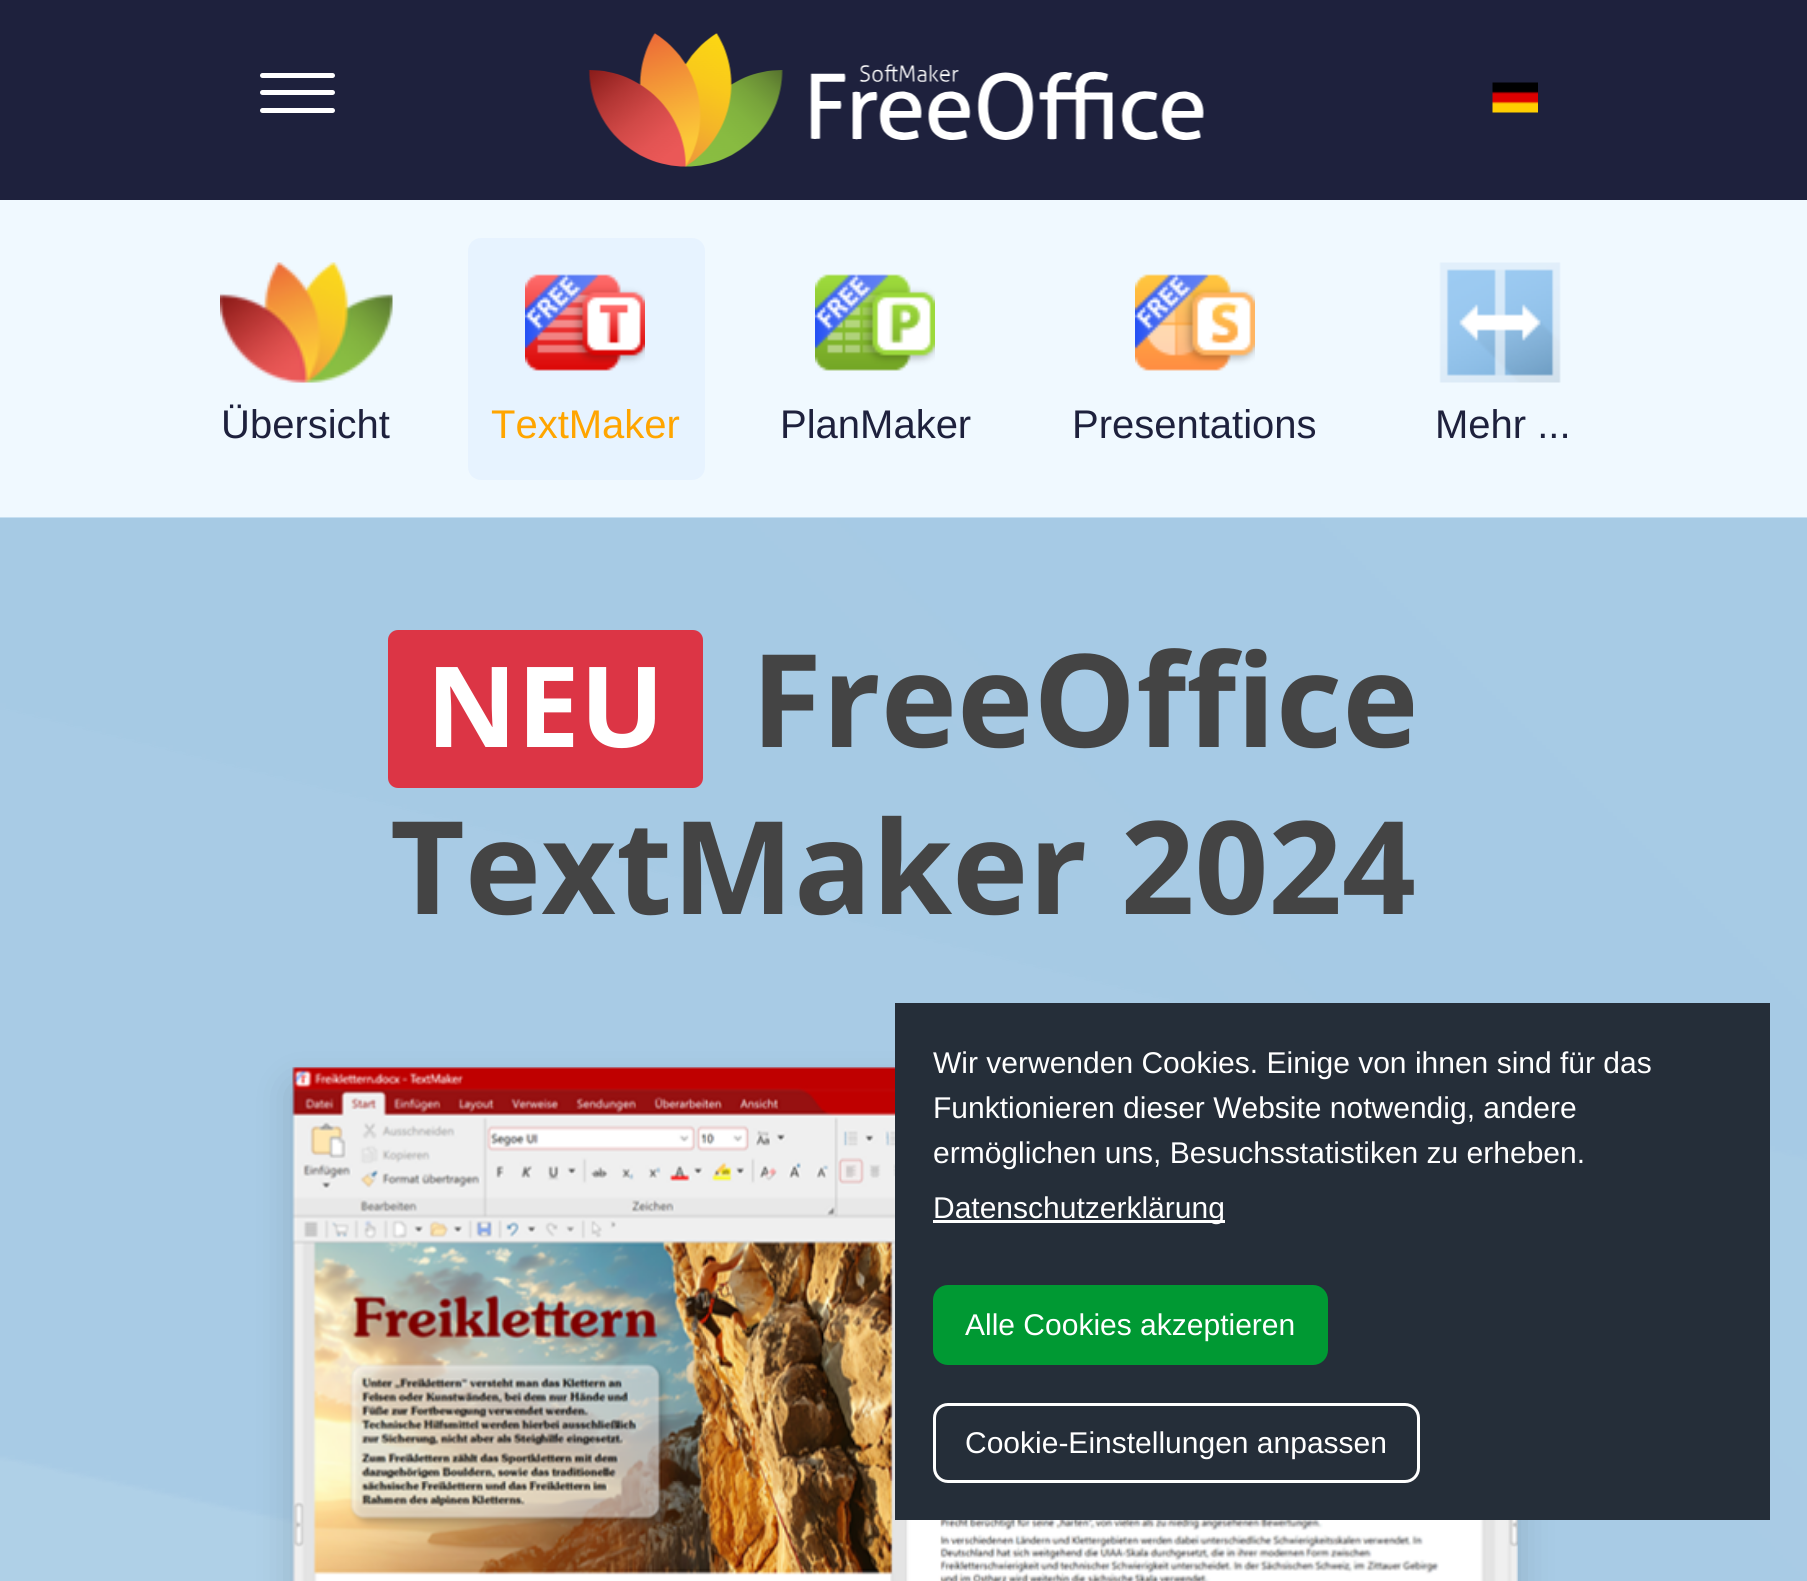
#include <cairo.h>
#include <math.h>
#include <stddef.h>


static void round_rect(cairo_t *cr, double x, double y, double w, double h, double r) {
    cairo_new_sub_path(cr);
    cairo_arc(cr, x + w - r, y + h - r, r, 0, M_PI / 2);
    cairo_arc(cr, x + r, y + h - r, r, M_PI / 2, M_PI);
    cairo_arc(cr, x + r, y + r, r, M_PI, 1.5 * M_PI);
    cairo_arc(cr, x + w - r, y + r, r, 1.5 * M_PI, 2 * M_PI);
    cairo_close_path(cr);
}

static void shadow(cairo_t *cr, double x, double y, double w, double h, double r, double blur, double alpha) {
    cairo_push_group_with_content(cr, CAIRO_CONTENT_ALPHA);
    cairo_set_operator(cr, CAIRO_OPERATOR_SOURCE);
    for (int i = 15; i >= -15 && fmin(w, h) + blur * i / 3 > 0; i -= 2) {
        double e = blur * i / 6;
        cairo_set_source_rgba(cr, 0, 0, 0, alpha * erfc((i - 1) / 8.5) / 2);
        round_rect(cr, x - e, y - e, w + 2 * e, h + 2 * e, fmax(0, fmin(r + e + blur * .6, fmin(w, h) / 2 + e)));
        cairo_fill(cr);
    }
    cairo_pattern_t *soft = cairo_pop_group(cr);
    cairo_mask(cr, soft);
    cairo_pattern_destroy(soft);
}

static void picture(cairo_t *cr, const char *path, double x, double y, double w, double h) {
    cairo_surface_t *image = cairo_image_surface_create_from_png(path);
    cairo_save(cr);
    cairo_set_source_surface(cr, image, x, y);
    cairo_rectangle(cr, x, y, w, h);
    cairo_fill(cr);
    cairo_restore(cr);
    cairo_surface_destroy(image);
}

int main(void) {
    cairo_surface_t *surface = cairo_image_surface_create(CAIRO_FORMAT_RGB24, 1807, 1581);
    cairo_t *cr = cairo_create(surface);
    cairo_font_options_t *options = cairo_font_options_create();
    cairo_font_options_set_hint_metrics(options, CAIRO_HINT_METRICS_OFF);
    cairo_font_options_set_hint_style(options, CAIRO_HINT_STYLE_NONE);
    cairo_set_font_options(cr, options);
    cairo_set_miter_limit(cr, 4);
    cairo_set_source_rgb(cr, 1, 1, 1);
    cairo_paint(cr);
    cairo_set_source_rgb(cr, 0.118, 0.129, 0.239);
    cairo_rectangle(cr, 0, 0, 1807, 200);
    cairo_fill(cr);
    cairo_set_source_rgb(cr, 1, 1, 1);
    round_rect(cr, 260, 73, 75, 5, 2.5);
    cairo_fill(cr);
    round_rect(cr, 260, 90, 75, 5, 2.5);
    cairo_fill(cr);
    round_rect(cr, 260, 108, 75, 5, 2.5);
    cairo_fill(cr);
    picture(cr, "img1.png", 588, 33, 616, 134);
    picture(cr, "img2.png", 1492, 82, 46, 31);
    cairo_set_source_rgb(cr, 0.941, 0.973, 1);
    cairo_rectangle(cr, 0, 200, 1807, 318);
    cairo_fill(cr);
    picture(cr, "img3.png", 220, 262, 173, 121);
    cairo_select_font_face(cr, "Liberation Sans", CAIRO_FONT_SLANT_NORMAL, CAIRO_FONT_WEIGHT_NORMAL);
    cairo_set_font_size(cr, 40);
    cairo_set_source_rgb(cr, 0.118, 0.129, 0.239);
    cairo_move_to(cr, 221, 438);
    cairo_show_text(cr, "Übersicht");
    cairo_set_source_rgb(cr, 0.906, 0.953, 1);
    round_rect(cr, 468, 238, 237, 242, 13);
    cairo_fill(cr);
    picture(cr, "img4.png", 525, 274, 120, 97);
    cairo_set_source_rgb(cr, 1, 0.647, 0);
    cairo_move_to(cr, 491, 438);
    cairo_show_text(cr, "TextMaker");
    picture(cr, "img5.png", 815, 274, 120, 97);
    cairo_set_source_rgb(cr, 0.118, 0.129, 0.239);
    cairo_move_to(cr, 780, 438);
    cairo_show_text(cr, "PlanMaker");
    picture(cr, "img6.png", 1135, 274, 120, 97);
    cairo_move_to(cr, 1072, 438);
    cairo_show_text(cr, "Presentations");
    picture(cr, "img7.png", 1439, 262, 122, 121);
    cairo_move_to(cr, 1435, 438);
    cairo_show_text(cr, "Mehr ...");
    picture(cr, "img8.png", 0, 517, 1807, 1064);
    cairo_set_source_rgb(cr, 0.863, 0.208, 0.271);
    round_rect(cr, 388, 630, 315, 158, 10);
    cairo_fill(cr);
    cairo_select_font_face(cr, "Open Sans", CAIRO_FONT_SLANT_NORMAL, CAIRO_FONT_WEIGHT_BOLD);
    cairo_set_font_size(cr, 112);
    cairo_set_source_rgb(cr, 1, 1, 1);
    cairo_move_to(cr, 426, 747);
    cairo_show_text(cr, "NEU");
    cairo_set_font_size(cr, 129.25);
    cairo_set_source_rgb(cr, 0.267, 0.267, 0.267);
    cairo_move_to(cr, 751, 747);
    cairo_show_text(cr, "FreeOffice");
    cairo_move_to(cr, 390, 914);
    cairo_show_text(cr, "TextMaker 2024");
    cairo_set_source_rgb(cr, 0, 0, 0);
    shadow(cr, 293, 1088, 1225, 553, 0, 20, 0.15);
    picture(cr, "img9.png", 292, 1067, 1226, 514);
    cairo_set_source_rgb(cr, 0.145, 0.18, 0.224);
    cairo_rectangle(cr, 895, 1003, 875, 517);
    cairo_fill(cr);
    cairo_select_font_face(cr, "Liberation Sans", CAIRO_FONT_SLANT_NORMAL, CAIRO_FONT_WEIGHT_NORMAL);
    cairo_set_font_size(cr, 30);
    cairo_set_source_rgb(cr, 1, 1, 1);
    cairo_move_to(cr, 933, 1073);
    cairo_show_text(cr, "Wir verwenden Cookies. Einige von ihnen sind für das");
    cairo_move_to(cr, 933, 1118);
    cairo_show_text(cr, "Funktionieren dieser Website notwendig, andere");
    cairo_move_to(cr, 933, 1163);
    cairo_show_text(cr, "ermöglichen uns, Besuchsstatistiken zu erheben.");
    cairo_rectangle(cr, 933, 1220, 292, 3);
    cairo_fill(cr);
    cairo_move_to(cr, 933, 1218);
    cairo_show_text(cr, "Datenschutzerklärung");
    cairo_set_source_rgb(cr, 0, 0.6, 0.2);
    round_rect(cr, 934.5, 1286.5, 392, 77, 13.5);
    cairo_fill_preserve(cr);
    cairo_set_line_width(cr, 3);
    cairo_stroke(cr);
    cairo_set_source_rgb(cr, 1, 1, 1);
    cairo_move_to(cr, 965, 1335);
    cairo_show_text(cr, "Alle Cookies akzeptieren");
    round_rect(cr, 934.5, 1404.5, 484, 77, 13.5);
    cairo_stroke(cr);
    cairo_move_to(cr, 965, 1453);
    cairo_show_text(cr, "Cookie-Einstellungen anpassen");
    cairo_surface_write_to_png(surface, "page.png");
    cairo_font_options_destroy(options);
    cairo_destroy(cr);
    cairo_surface_destroy(surface);
    return 0;
}
